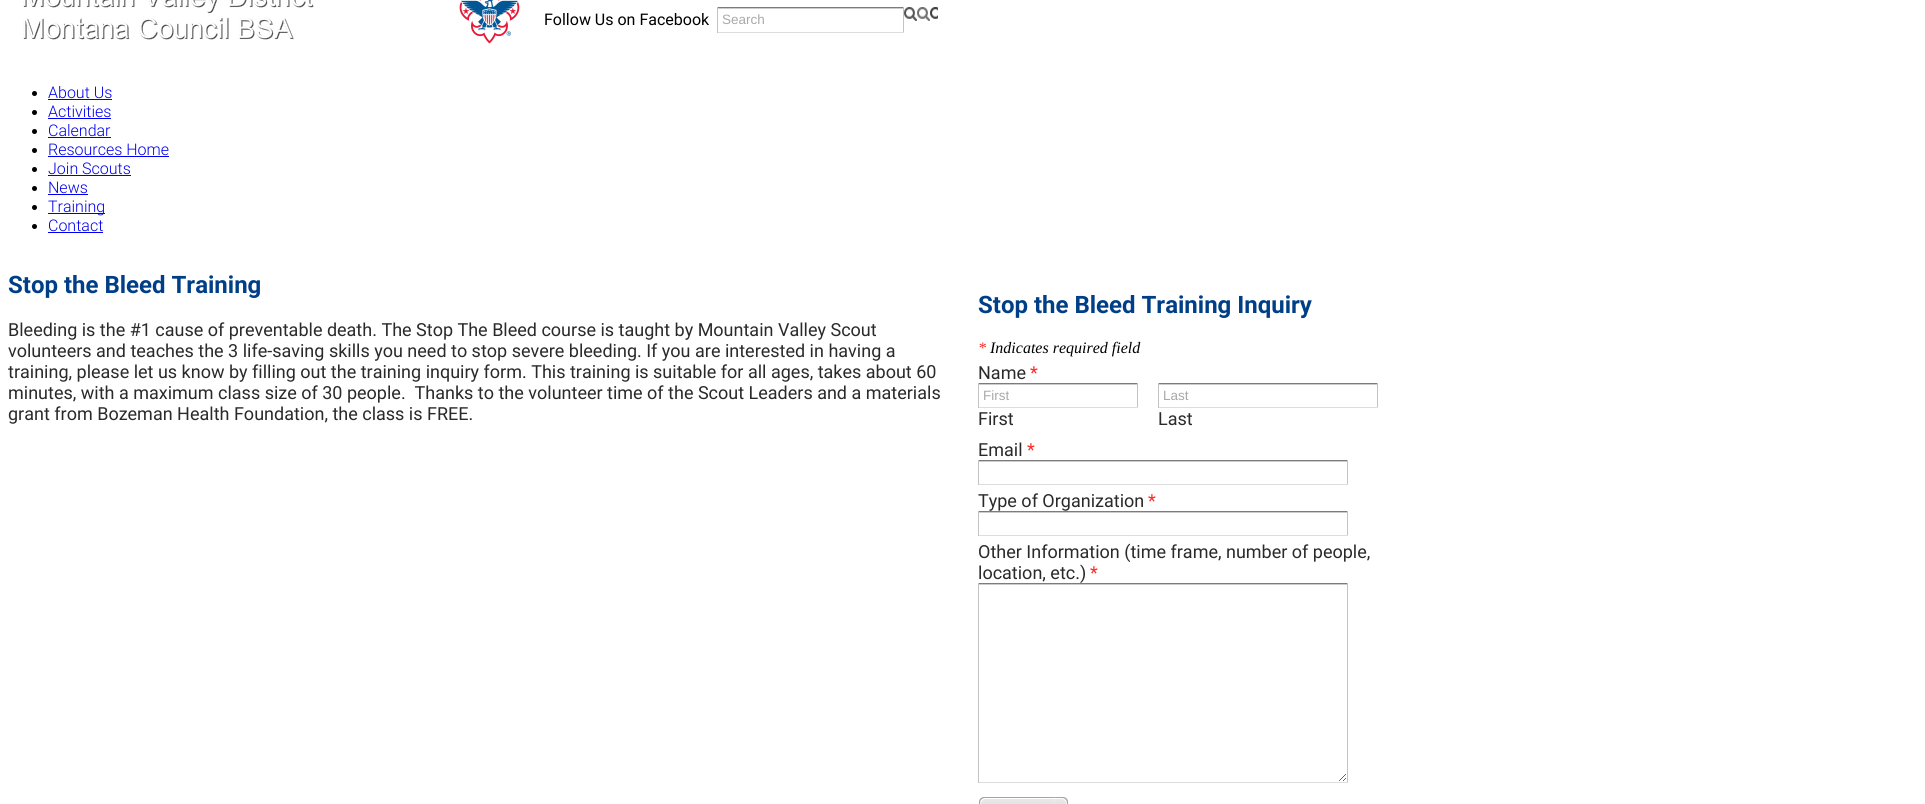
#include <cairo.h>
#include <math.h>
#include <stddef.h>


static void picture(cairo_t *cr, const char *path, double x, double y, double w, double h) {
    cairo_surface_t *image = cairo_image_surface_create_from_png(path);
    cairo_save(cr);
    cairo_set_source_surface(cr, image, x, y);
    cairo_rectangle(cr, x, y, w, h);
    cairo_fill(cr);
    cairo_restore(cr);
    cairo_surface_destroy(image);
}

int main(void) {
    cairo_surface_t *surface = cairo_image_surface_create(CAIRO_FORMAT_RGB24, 1925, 804);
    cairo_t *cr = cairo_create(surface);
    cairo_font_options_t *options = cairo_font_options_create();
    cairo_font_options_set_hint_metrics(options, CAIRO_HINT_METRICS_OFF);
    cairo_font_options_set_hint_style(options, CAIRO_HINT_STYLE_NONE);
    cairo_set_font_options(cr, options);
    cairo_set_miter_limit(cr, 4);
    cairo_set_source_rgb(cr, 1, 1, 1);
    cairo_paint(cr);
    picture(cr, "img1.png", 23, 0, 497, 44);
    cairo_select_font_face(cr, "Roboto", CAIRO_FONT_SLANT_NORMAL, CAIRO_FONT_WEIGHT_NORMAL);
    cairo_set_font_size(cr, 16);
    cairo_set_source_rgb(cr, 0, 0, 0);
    cairo_move_to(cr, 544, 25);
    cairo_show_text(cr, "Follow Us on Facebook");
    cairo_set_source_rgb(cr, 0.8, 0.8, 0.8);
    cairo_rectangle(cr, 717, 8, 187, 1);
    cairo_fill(cr);
    cairo_set_source_rgb(cr, 0.486, 0.486, 0.486);
    cairo_rectangle(cr, 717, 7, 187, 1);
    cairo_fill(cr);
    cairo_set_source_rgb(cr, 0.765, 0.765, 0.765);
    cairo_rectangle(cr, 903, 7, 1, 26);
    cairo_fill(cr);
    cairo_set_source_rgb(cr, 0.867, 0.867, 0.867);
    cairo_rectangle(cr, 717, 32, 187, 1);
    cairo_fill(cr);
    cairo_set_source_rgb(cr, 0.765, 0.765, 0.765);
    cairo_rectangle(cr, 717, 7, 1, 26);
    cairo_fill(cr);
    cairo_select_font_face(cr, "Liberation Sans", CAIRO_FONT_SLANT_NORMAL, CAIRO_FONT_WEIGHT_NORMAL);
    cairo_set_font_size(cr, 13.5);
    cairo_set_source_rgb(cr, 0.663, 0.663, 0.663);
    cairo_move_to(cr, 722, 24);
    cairo_show_text(cr, "Search");
    picture(cr, "img2.png", 904, 7, 34, 14);
    cairo_set_source_rgb(cr, 0, 0, 0);
    cairo_arc(cr, 34.5, 93.5, 2.5, 0, 2 * M_PI);
    cairo_fill(cr);
    cairo_select_font_face(cr, "Roboto Light", CAIRO_FONT_SLANT_NORMAL, CAIRO_FONT_WEIGHT_NORMAL);
    cairo_set_font_size(cr, 16);
    cairo_set_source_rgb(cr, 0, 0, 0.933);
    cairo_move_to(cr, 48, 98);
    cairo_show_text(cr, "About Us");
    cairo_rectangle(cr, 48, 99, 64, 1);
    cairo_fill(cr);
    cairo_set_source_rgb(cr, 0, 0, 0);
    cairo_arc(cr, 34.5, 112.5, 2.5, 0, 2 * M_PI);
    cairo_fill(cr);
    cairo_set_source_rgb(cr, 0, 0, 0.933);
    cairo_move_to(cr, 48, 117);
    cairo_show_text(cr, "Activities");
    cairo_rectangle(cr, 48, 118, 63, 1);
    cairo_fill(cr);
    cairo_set_source_rgb(cr, 0, 0, 0);
    cairo_arc(cr, 34.5, 131.5, 2.5, 0, 2 * M_PI);
    cairo_fill(cr);
    cairo_set_source_rgb(cr, 0, 0, 0.933);
    cairo_move_to(cr, 48, 136);
    cairo_show_text(cr, "Calendar");
    cairo_rectangle(cr, 48, 137, 63, 1);
    cairo_fill(cr);
    cairo_set_source_rgb(cr, 0, 0, 0);
    cairo_arc(cr, 34.5, 150.5, 2.5, 0, 2 * M_PI);
    cairo_fill(cr);
    cairo_set_source_rgb(cr, 0, 0, 0.933);
    cairo_move_to(cr, 48, 155);
    cairo_show_text(cr, "Resources Home");
    cairo_rectangle(cr, 48, 156, 121, 1);
    cairo_fill(cr);
    cairo_set_source_rgb(cr, 0, 0, 0);
    cairo_arc(cr, 34.5, 169.5, 2.5, 0, 2 * M_PI);
    cairo_fill(cr);
    cairo_set_source_rgb(cr, 0, 0, 0.933);
    cairo_move_to(cr, 48, 174);
    cairo_show_text(cr, "Join Scouts");
    cairo_rectangle(cr, 48, 175, 83, 1);
    cairo_fill(cr);
    cairo_set_source_rgb(cr, 0, 0, 0);
    cairo_arc(cr, 34.5, 188.5, 2.5, 0, 2 * M_PI);
    cairo_fill(cr);
    cairo_set_source_rgb(cr, 0, 0, 0.933);
    cairo_move_to(cr, 48, 193);
    cairo_show_text(cr, "News");
    cairo_rectangle(cr, 48, 194, 40, 1);
    cairo_fill(cr);
    cairo_set_source_rgb(cr, 0, 0, 0);
    cairo_arc(cr, 34.5, 207.5, 2.5, 0, 2 * M_PI);
    cairo_fill(cr);
    cairo_set_source_rgb(cr, 0, 0, 0.933);
    cairo_rectangle(cr, 48, 213, 57, 1);
    cairo_fill(cr);
    cairo_move_to(cr, 48, 212);
    cairo_show_text(cr, "Training");
    cairo_set_source_rgb(cr, 0, 0, 0);
    cairo_new_path(cr);
    cairo_arc(cr, 34.5, 226.5, 2.5, 0, 2 * M_PI);
    cairo_fill(cr);
    cairo_set_source_rgb(cr, 0, 0, 0.933);
    cairo_move_to(cr, 48, 231);
    cairo_show_text(cr, "Contact");
    cairo_rectangle(cr, 48, 232, 55, 1);
    cairo_fill(cr);
    cairo_select_font_face(cr, "Roboto", CAIRO_FONT_SLANT_NORMAL, CAIRO_FONT_WEIGHT_BOLD);
    cairo_set_font_size(cr, 24);
    cairo_set_source_rgb(cr, 0, 0.247, 0.529);
    cairo_move_to(cr, 8, 293);
    cairo_show_text(cr, "Stop the Bleed Training");
    cairo_select_font_face(cr, "Roboto", CAIRO_FONT_SLANT_NORMAL, CAIRO_FONT_WEIGHT_NORMAL);
    cairo_set_font_size(cr, 18);
    cairo_set_source_rgb(cr, 0.165, 0.165, 0.165);
    cairo_move_to(cr, 8, 336);
    cairo_show_text(cr, "Bleeding is the #1 cause of preventable death. The Stop The Bleed course is taught by Mountain Valley Scout");
    cairo_move_to(cr, 8, 357);
    cairo_show_text(cr, "volunteers and teaches the 3 life-saving skills you need to stop severe bleeding. If you are interested in having a");
    cairo_move_to(cr, 8, 378);
    cairo_show_text(cr, "training, please let us know by filling out the training inquiry form. This training is suitable for all ages, takes about 60");
    cairo_move_to(cr, 8, 399);
    cairo_show_text(cr, "minutes, with a maximum class size of 30 people.  Thanks to the volunteer time of the Scout Leaders and a materials");
    cairo_move_to(cr, 8, 420);
    cairo_show_text(cr, "grant from Bozeman Health Foundation, the class is FREE.");
    cairo_select_font_face(cr, "Roboto", CAIRO_FONT_SLANT_NORMAL, CAIRO_FONT_WEIGHT_BOLD);
    cairo_set_font_size(cr, 24);
    cairo_set_source_rgb(cr, 0, 0.247, 0.529);
    cairo_move_to(cr, 978, 313);
    cairo_show_text(cr, "Stop the Bleed Training Inquiry");
    cairo_select_font_face(cr, "Liberation Serif", CAIRO_FONT_SLANT_ITALIC, CAIRO_FONT_WEIGHT_NORMAL);
    cairo_set_font_size(cr, 16);
    cairo_set_source_rgb(cr, 1, 0.157, 0.145);
    cairo_move_to(cr, 978, 353);
    cairo_show_text(cr, "*");
    cairo_set_source_rgb(cr, 0, 0, 0);
    cairo_move_to(cr, 990, 353);
    cairo_show_text(cr, "Indicates required field");
    cairo_select_font_face(cr, "Roboto", CAIRO_FONT_SLANT_NORMAL, CAIRO_FONT_WEIGHT_NORMAL);
    cairo_set_font_size(cr, 18);
    cairo_set_source_rgb(cr, 0.165, 0.165, 0.165);
    cairo_move_to(cr, 978, 379);
    cairo_show_text(cr, "Name");
    cairo_set_source_rgb(cr, 1, 0.157, 0.145);
    cairo_move_to(cr, 1030, 379);
    cairo_show_text(cr, "*");
    cairo_set_source_rgb(cr, 0.8, 0.8, 0.8);
    cairo_rectangle(cr, 978, 384, 160, 1);
    cairo_fill(cr);
    cairo_set_source_rgb(cr, 0.486, 0.486, 0.486);
    cairo_rectangle(cr, 978, 383, 160, 1);
    cairo_fill(cr);
    cairo_set_source_rgb(cr, 0.765, 0.765, 0.765);
    cairo_rectangle(cr, 1137, 383, 1, 25);
    cairo_fill(cr);
    cairo_set_source_rgb(cr, 0.867, 0.867, 0.867);
    cairo_rectangle(cr, 978, 407, 160, 1);
    cairo_fill(cr);
    cairo_set_source_rgb(cr, 0.765, 0.765, 0.765);
    cairo_rectangle(cr, 978, 383, 1, 25);
    cairo_fill(cr);
    cairo_select_font_face(cr, "Liberation Sans", CAIRO_FONT_SLANT_NORMAL, CAIRO_FONT_WEIGHT_NORMAL);
    cairo_set_font_size(cr, 13.5);
    cairo_set_source_rgb(cr, 0.663, 0.663, 0.663);
    cairo_move_to(cr, 983, 400);
    cairo_show_text(cr, "First");
    cairo_select_font_face(cr, "Roboto", CAIRO_FONT_SLANT_NORMAL, CAIRO_FONT_WEIGHT_NORMAL);
    cairo_set_font_size(cr, 18);
    cairo_set_source_rgb(cr, 0.165, 0.165, 0.165);
    cairo_move_to(cr, 978, 425);
    cairo_show_text(cr, "First");
    cairo_set_source_rgb(cr, 0.8, 0.8, 0.8);
    cairo_rectangle(cr, 1158, 384, 220, 1);
    cairo_fill(cr);
    cairo_set_source_rgb(cr, 0.486, 0.486, 0.486);
    cairo_rectangle(cr, 1158, 383, 220, 1);
    cairo_fill(cr);
    cairo_set_source_rgb(cr, 0.765, 0.765, 0.765);
    cairo_rectangle(cr, 1377, 383, 1, 25);
    cairo_fill(cr);
    cairo_set_source_rgb(cr, 0.867, 0.867, 0.867);
    cairo_rectangle(cr, 1158, 407, 220, 1);
    cairo_fill(cr);
    cairo_set_source_rgb(cr, 0.765, 0.765, 0.765);
    cairo_rectangle(cr, 1158, 383, 1, 25);
    cairo_fill(cr);
    cairo_select_font_face(cr, "Liberation Sans", CAIRO_FONT_SLANT_NORMAL, CAIRO_FONT_WEIGHT_NORMAL);
    cairo_set_font_size(cr, 13.5);
    cairo_set_source_rgb(cr, 0.663, 0.663, 0.663);
    cairo_move_to(cr, 1163, 400);
    cairo_show_text(cr, "Last");
    cairo_select_font_face(cr, "Roboto", CAIRO_FONT_SLANT_NORMAL, CAIRO_FONT_WEIGHT_NORMAL);
    cairo_set_font_size(cr, 18);
    cairo_set_source_rgb(cr, 0.165, 0.165, 0.165);
    cairo_move_to(cr, 1158, 425);
    cairo_show_text(cr, "Last");
    cairo_move_to(cr, 978, 456);
    cairo_show_text(cr, "Email");
    cairo_set_source_rgb(cr, 1, 0.157, 0.145);
    cairo_move_to(cr, 1027, 456);
    cairo_show_text(cr, "*");
    cairo_set_source_rgb(cr, 0.8, 0.8, 0.8);
    cairo_rectangle(cr, 978, 461, 370, 1);
    cairo_fill(cr);
    cairo_set_source_rgb(cr, 0.486, 0.486, 0.486);
    cairo_rectangle(cr, 978, 460, 370, 1);
    cairo_fill(cr);
    cairo_set_source_rgb(cr, 0.765, 0.765, 0.765);
    cairo_rectangle(cr, 1347, 460, 1, 25);
    cairo_fill(cr);
    cairo_set_source_rgb(cr, 0.867, 0.867, 0.867);
    cairo_rectangle(cr, 978, 484, 370, 1);
    cairo_fill(cr);
    cairo_set_source_rgb(cr, 0.765, 0.765, 0.765);
    cairo_rectangle(cr, 978, 460, 1, 25);
    cairo_fill(cr);
    cairo_set_source_rgb(cr, 0.165, 0.165, 0.165);
    cairo_move_to(cr, 978, 507);
    cairo_show_text(cr, "Type of Organization");
    cairo_set_source_rgb(cr, 1, 0.157, 0.145);
    cairo_move_to(cr, 1148, 507);
    cairo_show_text(cr, "*");
    cairo_set_source_rgb(cr, 0.8, 0.8, 0.8);
    cairo_rectangle(cr, 978, 512, 370, 1);
    cairo_fill(cr);
    cairo_set_source_rgb(cr, 0.486, 0.486, 0.486);
    cairo_rectangle(cr, 978, 511, 370, 1);
    cairo_fill(cr);
    cairo_set_source_rgb(cr, 0.765, 0.765, 0.765);
    cairo_rectangle(cr, 1347, 511, 1, 25);
    cairo_fill(cr);
    cairo_set_source_rgb(cr, 0.867, 0.867, 0.867);
    cairo_rectangle(cr, 978, 535, 370, 1);
    cairo_fill(cr);
    cairo_set_source_rgb(cr, 0.765, 0.765, 0.765);
    cairo_rectangle(cr, 978, 511, 1, 25);
    cairo_fill(cr);
    cairo_set_source_rgb(cr, 0.165, 0.165, 0.165);
    cairo_move_to(cr, 978, 558);
    cairo_show_text(cr, "Other Information (time frame, number of people,");
    cairo_move_to(cr, 978, 579);
    cairo_show_text(cr, "location, etc.)");
    cairo_set_source_rgb(cr, 1, 0.157, 0.145);
    cairo_move_to(cr, 1090, 579);
    cairo_show_text(cr, "*");
    picture(cr, "img3.png", 979, 584, 368, 197);
    cairo_set_source_rgb(cr, 0.486, 0.486, 0.486);
    cairo_rectangle(cr, 978, 583, 370, 1);
    cairo_fill(cr);
    cairo_set_source_rgb(cr, 0.765, 0.765, 0.765);
    cairo_rectangle(cr, 1347, 583, 1, 200);
    cairo_fill(cr);
    cairo_set_source_rgb(cr, 0.867, 0.867, 0.867);
    cairo_rectangle(cr, 978, 782, 370, 1);
    cairo_fill(cr);
    cairo_set_source_rgb(cr, 0.765, 0.765, 0.765);
    cairo_rectangle(cr, 978, 583, 1, 200);
    cairo_fill(cr);
    picture(cr, "img4.png", 1054, 797, 15, 7);
    picture(cr, "img5.png", 979, 797, 75, 7);
    cairo_surface_write_to_png(surface, "page.png");
    cairo_font_options_destroy(options);
    cairo_destroy(cr);
    cairo_surface_destroy(surface);
    return 0;
}
